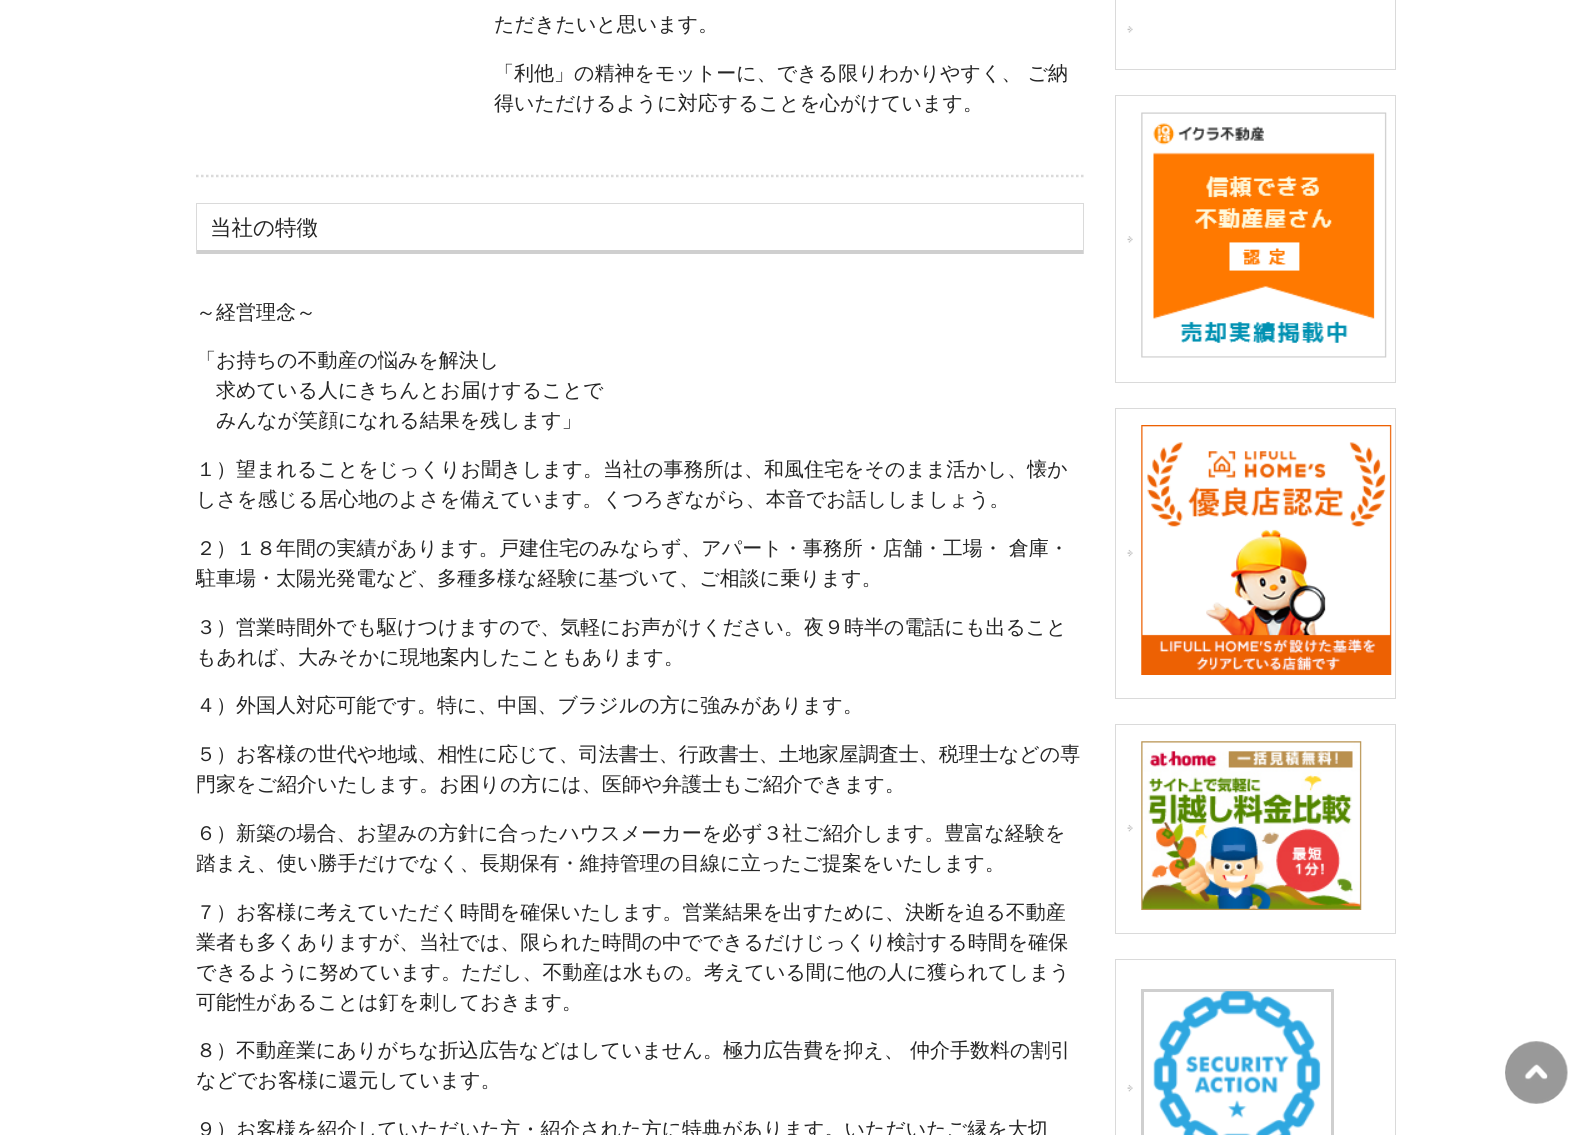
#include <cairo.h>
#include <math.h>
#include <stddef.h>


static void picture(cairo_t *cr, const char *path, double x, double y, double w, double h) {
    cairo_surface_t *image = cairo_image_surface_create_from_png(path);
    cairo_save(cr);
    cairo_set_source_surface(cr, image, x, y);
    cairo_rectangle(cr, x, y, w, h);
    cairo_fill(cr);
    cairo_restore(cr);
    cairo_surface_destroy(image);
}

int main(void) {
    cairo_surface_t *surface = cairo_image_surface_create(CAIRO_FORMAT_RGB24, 1592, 1135);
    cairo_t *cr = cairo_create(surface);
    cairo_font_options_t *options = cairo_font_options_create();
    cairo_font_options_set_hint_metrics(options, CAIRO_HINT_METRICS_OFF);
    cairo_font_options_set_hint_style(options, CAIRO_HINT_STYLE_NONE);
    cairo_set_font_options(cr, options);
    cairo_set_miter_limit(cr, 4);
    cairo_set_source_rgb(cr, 1, 1, 1);
    cairo_paint(cr);
    cairo_new_path(cr);
    cairo_move_to(cr, 196, 176);
    cairo_line_to(cr, 1084, 176);
    cairo_set_source_rgb(cr, 0.855, 0.855, 0.855);
    cairo_set_line_width(cr, 2.5);
    cairo_set_dash(cr, (double[]){2.5, 2.5}, 2, 0);
    cairo_stroke(cr);
    cairo_select_font_face(cr, "WenQuanYi Zen Hei Medium", CAIRO_FONT_SLANT_NORMAL, CAIRO_FONT_WEIGHT_NORMAL);
    cairo_set_font_size(cr, 20);
    cairo_set_source_rgb(cr, 0.145, 0.145, 0.145);
    cairo_move_to(cr, 494, 31);
    cairo_show_text(cr, "ただきたいと思います。");
    cairo_move_to(cr, 494, 80);
    cairo_show_text(cr, "「利他」の精神をモットーに、できる限りわかりやすく、 ご納");
    cairo_move_to(cr, 494, 110);
    cairo_show_text(cr, "得いただけるように対応することを心がけています。");
    cairo_set_source_rgb(cr, 0.812, 0.812, 0.812);
    cairo_rectangle(cr, 196, 250, 888, 4);
    cairo_fill(cr);
    cairo_set_source_rgb(cr, 0.855, 0.855, 0.855);
    cairo_rectangle(cr, 196, 203, 888, 1);
    cairo_fill(cr);
    cairo_rectangle(cr, 1083, 203, 1, 51);
    cairo_fill(cr);
    cairo_rectangle(cr, 196, 203, 1, 51);
    cairo_fill(cr);
    cairo_set_font_size(cr, 21.5);
    cairo_set_source_rgb(cr, 0.145, 0.145, 0.145);
    cairo_move_to(cr, 210, 235);
    cairo_show_text(cr, "当社の特徴");
    cairo_set_font_size(cr, 20);
    cairo_move_to(cr, 196, 319);
    cairo_show_text(cr, "～経営理念～");
    cairo_move_to(cr, 196, 367);
    cairo_show_text(cr, "「お持ちの不動産の悩みを解決し");
    cairo_move_to(cr, 216, 397);
    cairo_show_text(cr, "求めている人にきちんとお届けすることで");
    cairo_move_to(cr, 216, 427);
    cairo_show_text(cr, "みんなが笑顔になれる結果を残します」");
    cairo_move_to(cr, 196, 476);
    cairo_show_text(cr, "１）望まれることをじっくりお聞きします。当社の事務所は、和風住宅をそのまま活かし、懐か");
    cairo_move_to(cr, 196, 506);
    cairo_show_text(cr, "しさを感じる居心地のよさを備えています。くつろぎながら、本音でお話ししましょう。");
    cairo_move_to(cr, 196, 555);
    cairo_show_text(cr, "２）１８年間の実績があります。");
    cairo_move_to(cr, 499, 555);
    cairo_show_text(cr, "戸建住宅のみならず、アパート・事務所・店舗・工場・ 倉庫・");
    cairo_move_to(cr, 196, 585);
    cairo_show_text(cr, "駐車場・太陽光発電など、多種多様な経験に基づいて、ご相談に乗ります。");
    cairo_move_to(cr, 196, 634);
    cairo_show_text(cr, "３）営業時間外でも駆けつけますので、気軽にお声がけください。夜９時半の電話にも出ること");
    cairo_move_to(cr, 196, 664);
    cairo_show_text(cr, "もあれば、大みそかに現地案内したこともあります。");
    cairo_move_to(cr, 196, 712);
    cairo_show_text(cr, "４）外国人対応可能です。特に、中国、ブラジルの方に強みがあります。");
    cairo_move_to(cr, 196, 761);
    cairo_show_text(cr, "５）お客様の世代や地域、相性に応じて、司法書士、行政書士、土地家屋調査士、税理士などの専");
    cairo_move_to(cr, 196, 791);
    cairo_show_text(cr, "門家をご紹介いたします。お困りの方には、医師や弁護士もご紹介できます。");
    cairo_move_to(cr, 196, 840);
    cairo_show_text(cr, "６）新築の場合、お望みの方針に合ったハウスメーカーを必ず３社ご紹介します。豊富な経験を");
    cairo_move_to(cr, 196, 870);
    cairo_show_text(cr, "踏まえ、使い勝手だけでなく、長期保有・維持管理の目線に立ったご提案をいたします。");
    cairo_move_to(cr, 196, 919);
    cairo_show_text(cr, "７）お客様に考えていただく時間を確保いたします。営業結果を出すために、決断を迫る不動産");
    cairo_move_to(cr, 196, 949);
    cairo_show_text(cr, "業者も多くありますが、当社では、限られた時間の中でできるだけじっくり検討する時間を確保");
    cairo_move_to(cr, 196, 979);
    cairo_show_text(cr, "できるように努めています。ただし、不動産は水もの。考えている間に他の人に獲られてしまう");
    cairo_move_to(cr, 196, 1009);
    cairo_show_text(cr, "可能性があることは釘を刺しておきます。");
    cairo_move_to(cr, 196, 1057);
    cairo_show_text(cr, "８）不動産業にありがちな折込広告などはしていません。");
    cairo_move_to(cr, 723, 1057);
    cairo_show_text(cr, "極力広告費を抑え、 仲介手数料の割引");
    cairo_move_to(cr, 196, 1087);
    cairo_show_text(cr, "などでお客様に還元しています。");
    cairo_move_to(cr, 196, 1136);
    cairo_show_text(cr, "９）お客様を紹介していただいた方・紹介された方に特典があります。いただいたご縁を大切");
    cairo_rectangle(cr, 1115.5, -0.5, 280, 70);
    cairo_set_source_rgb(cr, 0.855, 0.855, 0.855);
    cairo_set_line_width(cr, 1);
    cairo_set_dash(cr, NULL, 0, 0);
    cairo_stroke(cr);
    picture(cr, "img1.png", 1127, 26, 6, 7);
    cairo_rectangle(cr, 1115.5, 95.5, 280, 287);
    cairo_stroke(cr);
    picture(cr, "img1.png", 1127, 236, 6, 7);
    picture(cr, "img2.png", 1141, 112, 246, 246);
    cairo_rectangle(cr, 1115.5, 408.5, 280, 290);
    cairo_stroke(cr);
    picture(cr, "img3.png", 1127, 549, 6, 8);
    picture(cr, "img4.png", 1141, 425, 251, 250);
    cairo_rectangle(cr, 1115.5, 724.5, 280, 209);
    cairo_stroke(cr);
    picture(cr, "img3.png", 1127, 824, 6, 8);
    picture(cr, "img5.png", 1141, 741, 221, 169);
    cairo_rectangle(cr, 1115.5, 959.5, 280, 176);
    cairo_stroke(cr);
    picture(cr, "img3.png", 1127, 1084, 6, 8);
    cairo_rectangle(cr, 1142.5, 990.5, 190, 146);
    cairo_set_source_rgb(cr, 0.812, 0.812, 0.812);
    cairo_set_line_width(cr, 3);
    cairo_stroke(cr);
    picture(cr, "img6.png", 1153, 991, 168, 144);
    picture(cr, "img7.png", 1505, 1041, 63, 63);
    cairo_surface_write_to_png(surface, "page.png");
    cairo_font_options_destroy(options);
    cairo_destroy(cr);
    cairo_surface_destroy(surface);
    return 0;
}
